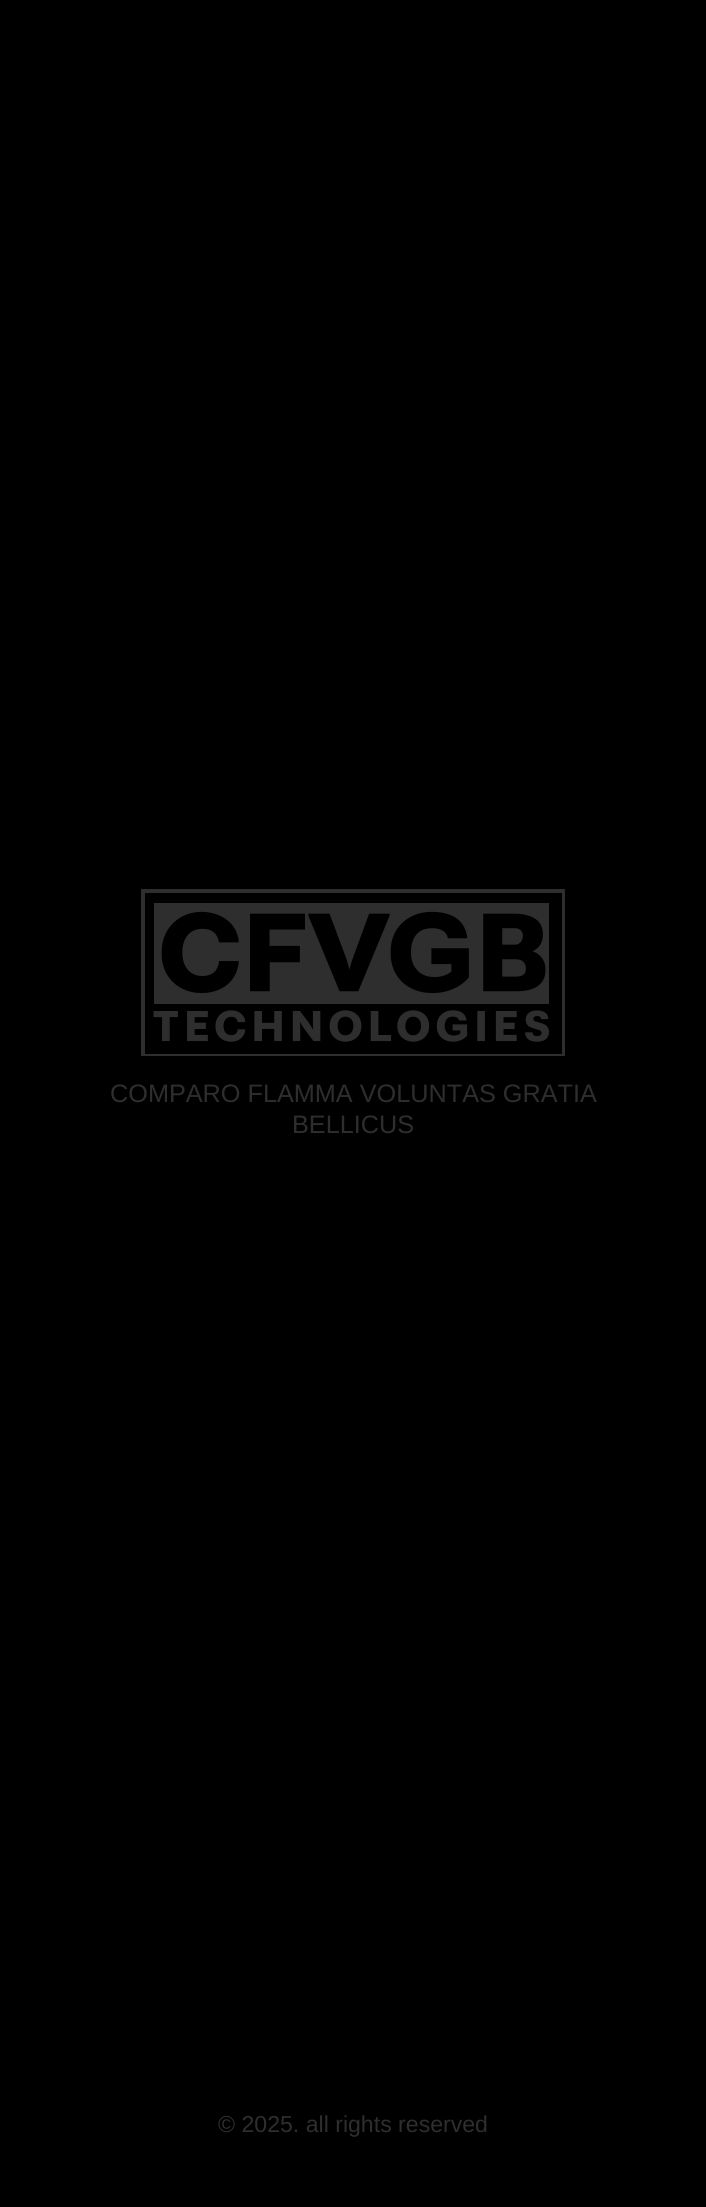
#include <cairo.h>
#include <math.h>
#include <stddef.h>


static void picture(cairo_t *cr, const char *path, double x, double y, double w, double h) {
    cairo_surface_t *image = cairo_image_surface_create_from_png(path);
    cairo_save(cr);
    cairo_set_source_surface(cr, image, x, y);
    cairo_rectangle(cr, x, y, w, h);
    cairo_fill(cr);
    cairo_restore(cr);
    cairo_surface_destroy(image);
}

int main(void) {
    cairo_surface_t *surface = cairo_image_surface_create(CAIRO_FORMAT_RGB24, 706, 2207);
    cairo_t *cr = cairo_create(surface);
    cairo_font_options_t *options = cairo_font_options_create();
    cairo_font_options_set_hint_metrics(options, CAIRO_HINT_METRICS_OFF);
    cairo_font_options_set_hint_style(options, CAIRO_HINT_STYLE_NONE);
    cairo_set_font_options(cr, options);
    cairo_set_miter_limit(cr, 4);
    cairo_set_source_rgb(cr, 0, 0, 0);
    cairo_paint(cr);
    picture(cr, "img1.png", 141, 889, 424, 167);
    cairo_select_font_face(cr, "Liberation Sans", CAIRO_FONT_SLANT_NORMAL, CAIRO_FONT_WEIGHT_NORMAL);
    cairo_set_font_size(cr, 25.25);
    cairo_set_source_rgb(cr, 0.18, 0.18, 0.18);
    cairo_move_to(cr, 110, 1102);
    cairo_show_text(cr, "COMPARO FLAMMA VOLUNTAS GRATIA");
    cairo_move_to(cr, 292, 1133);
    cairo_show_text(cr, "BELLICUS");
    cairo_set_font_size(cr, 23.1);
    cairo_move_to(cr, 218, 2132);
    cairo_show_text(cr, "© 2025. all rights reserved");
    cairo_surface_write_to_png(surface, "page.png");
    cairo_font_options_destroy(options);
    cairo_destroy(cr);
    cairo_surface_destroy(surface);
    return 0;
}
